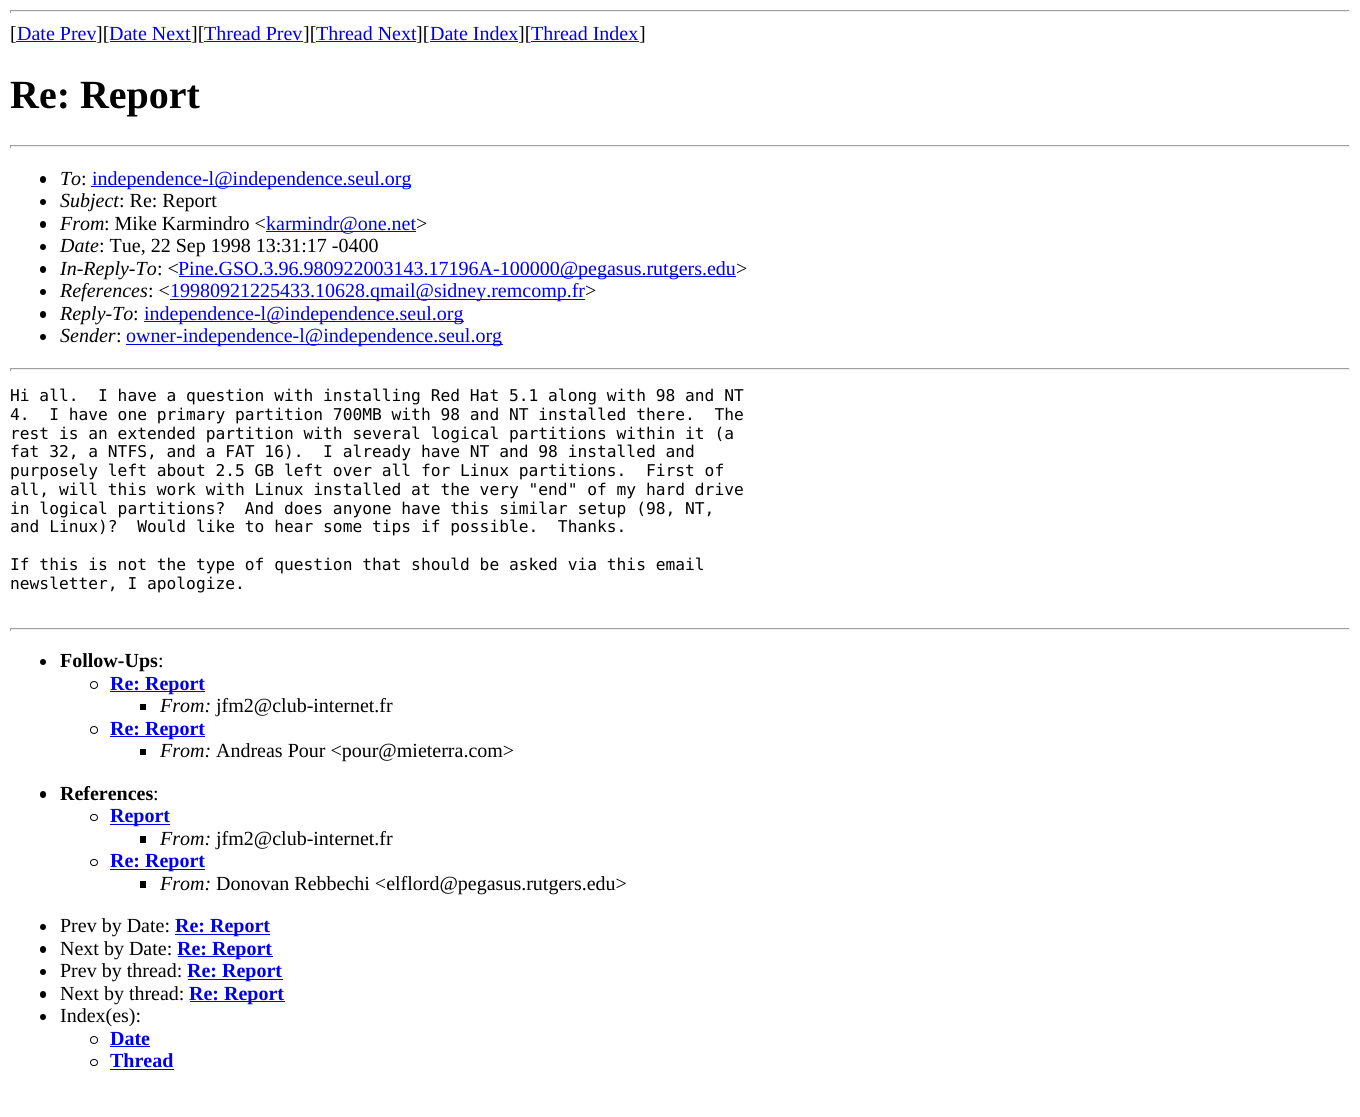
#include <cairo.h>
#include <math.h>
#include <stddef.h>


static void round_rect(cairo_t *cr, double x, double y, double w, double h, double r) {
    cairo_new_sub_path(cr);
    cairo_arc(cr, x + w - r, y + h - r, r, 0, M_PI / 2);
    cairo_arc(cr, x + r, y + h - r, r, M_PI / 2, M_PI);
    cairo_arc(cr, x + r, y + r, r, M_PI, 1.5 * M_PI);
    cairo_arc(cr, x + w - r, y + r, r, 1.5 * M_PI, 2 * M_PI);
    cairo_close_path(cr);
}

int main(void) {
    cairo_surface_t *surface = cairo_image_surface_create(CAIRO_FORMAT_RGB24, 1360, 1117);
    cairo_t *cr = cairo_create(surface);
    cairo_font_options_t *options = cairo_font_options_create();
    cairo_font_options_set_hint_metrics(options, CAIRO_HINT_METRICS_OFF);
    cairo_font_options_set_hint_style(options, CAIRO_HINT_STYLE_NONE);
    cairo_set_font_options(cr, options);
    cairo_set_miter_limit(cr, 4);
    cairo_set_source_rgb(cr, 1, 1, 1);
    cairo_paint(cr);
    cairo_set_source_rgb(cr, 0.624, 0.624, 0.624);
    cairo_rectangle(cr, 10, 10, 1340, 1);
    cairo_fill(cr);
    cairo_set_source_rgb(cr, 0.933, 0.933, 0.933);
    cairo_rectangle(cr, 1349, 10, 1, 3);
    cairo_fill(cr);
    cairo_rectangle(cr, 10, 11, 1340, 1);
    cairo_fill(cr);
    cairo_set_source_rgb(cr, 0.624, 0.624, 0.624);
    cairo_rectangle(cr, 10, 10, 1, 3);
    cairo_fill(cr);
    cairo_select_font_face(cr, "Liberation Serif", CAIRO_FONT_SLANT_NORMAL, CAIRO_FONT_WEIGHT_NORMAL);
    cairo_set_font_size(cr, 20);
    cairo_set_source_rgb(cr, 0, 0, 0);
    cairo_move_to(cr, 10, 40);
    cairo_show_text(cr, "[");
    cairo_set_source_rgb(cr, 0, 0, 0.933);
    cairo_move_to(cr, 17, 40);
    cairo_show_text(cr, "Date Prev");
    cairo_rectangle(cr, 16, 41, 80, 1);
    cairo_fill(cr);
    cairo_set_source_rgb(cr, 0, 0, 0);
    cairo_move_to(cr, 96, 40);
    cairo_show_text(cr, "][");
    cairo_set_source_rgb(cr, 0, 0, 0.933);
    cairo_move_to(cr, 109, 40);
    cairo_show_text(cr, "Date Next");
    cairo_rectangle(cr, 110, 41, 81, 1);
    cairo_fill(cr);
    cairo_set_source_rgb(cr, 0, 0, 0);
    cairo_move_to(cr, 191, 40);
    cairo_show_text(cr, "][");
    cairo_set_source_rgb(cr, 0, 0, 0.933);
    cairo_move_to(cr, 204, 40);
    cairo_show_text(cr, "Thread Prev");
    cairo_rectangle(cr, 204, 41, 99, 1);
    cairo_fill(cr);
    cairo_set_source_rgb(cr, 0, 0, 0);
    cairo_move_to(cr, 303, 40);
    cairo_show_text(cr, "][");
    cairo_set_source_rgb(cr, 0, 0, 0.933);
    cairo_move_to(cr, 316, 40);
    cairo_show_text(cr, "Thread Next");
    cairo_rectangle(cr, 316, 41, 100, 1);
    cairo_fill(cr);
    cairo_set_source_rgb(cr, 0, 0, 0);
    cairo_move_to(cr, 416, 40);
    cairo_show_text(cr, "][");
    cairo_set_source_rgb(cr, 0, 0, 0.933);
    cairo_move_to(cr, 430, 40);
    cairo_show_text(cr, "Date Index");
    cairo_rectangle(cr, 430, 41, 88, 1);
    cairo_fill(cr);
    cairo_set_source_rgb(cr, 0, 0, 0);
    cairo_move_to(cr, 518, 40);
    cairo_show_text(cr, "][");
    cairo_set_source_rgb(cr, 0, 0, 0.933);
    cairo_move_to(cr, 531, 40);
    cairo_show_text(cr, "Thread Index");
    cairo_rectangle(cr, 531, 41, 108, 1);
    cairo_fill(cr);
    cairo_set_source_rgb(cr, 0, 0, 0);
    cairo_move_to(cr, 639, 40);
    cairo_show_text(cr, "]");
    cairo_select_font_face(cr, "Liberation Serif", CAIRO_FONT_SLANT_NORMAL, CAIRO_FONT_WEIGHT_BOLD);
    cairo_set_font_size(cr, 40);
    cairo_move_to(cr, 10, 108);
    cairo_show_text(cr, "Re: Report");
    cairo_set_source_rgb(cr, 0.624, 0.624, 0.624);
    cairo_rectangle(cr, 10, 145, 1340, 1);
    cairo_fill(cr);
    cairo_set_source_rgb(cr, 0.933, 0.933, 0.933);
    cairo_rectangle(cr, 1349, 145, 1, 3);
    cairo_fill(cr);
    cairo_rectangle(cr, 10, 146, 1340, 1);
    cairo_fill(cr);
    cairo_set_source_rgb(cr, 0.624, 0.624, 0.624);
    cairo_rectangle(cr, 10, 145, 1, 3);
    cairo_fill(cr);
    cairo_set_source_rgb(cr, 0, 0, 0);
    round_rect(cr, 40, 176, 6, 7, 3);
    cairo_fill(cr);
    cairo_select_font_face(cr, "Liberation Serif", CAIRO_FONT_SLANT_ITALIC, CAIRO_FONT_WEIGHT_NORMAL);
    cairo_set_font_size(cr, 20);
    cairo_move_to(cr, 60, 185);
    cairo_show_text(cr, "To");
    cairo_select_font_face(cr, "Liberation Serif", CAIRO_FONT_SLANT_NORMAL, CAIRO_FONT_WEIGHT_NORMAL);
    cairo_move_to(cr, 81, 185);
    cairo_show_text(cr, ":");
    cairo_set_source_rgb(cr, 0, 0, 0.933);
    cairo_rectangle(cr, 91, 186, 320, 1);
    cairo_fill(cr);
    cairo_move_to(cr, 92, 185);
    cairo_show_text(cr, "independence-l@independence.seul.org");
    cairo_set_source_rgb(cr, 0, 0, 0);
    cairo_new_path(cr);
    cairo_arc(cr, 43, 202, 3, 0, 2 * M_PI);
    cairo_fill(cr);
    cairo_select_font_face(cr, "Liberation Serif", CAIRO_FONT_SLANT_ITALIC, CAIRO_FONT_WEIGHT_NORMAL);
    cairo_move_to(cr, 60, 207);
    cairo_show_text(cr, "Subject");
    cairo_select_font_face(cr, "Liberation Serif", CAIRO_FONT_SLANT_NORMAL, CAIRO_FONT_WEIGHT_NORMAL);
    cairo_move_to(cr, 119, 207);
    cairo_show_text(cr, ": Re: Report");
    round_rect(cr, 40, 221, 6, 7, 3);
    cairo_fill(cr);
    cairo_select_font_face(cr, "Liberation Serif", CAIRO_FONT_SLANT_ITALIC, CAIRO_FONT_WEIGHT_NORMAL);
    cairo_move_to(cr, 60, 230);
    cairo_show_text(cr, "From");
    cairo_select_font_face(cr, "Liberation Serif", CAIRO_FONT_SLANT_NORMAL, CAIRO_FONT_WEIGHT_NORMAL);
    cairo_move_to(cr, 104, 230);
    cairo_show_text(cr, ": Mike Karmindro <");
    cairo_set_source_rgb(cr, 0, 0, 0.933);
    cairo_rectangle(cr, 266, 231, 150, 1);
    cairo_fill(cr);
    cairo_move_to(cr, 266, 230);
    cairo_show_text(cr, "karmindr@one.net");
    cairo_set_source_rgb(cr, 0, 0, 0);
    cairo_move_to(cr, 416, 230);
    cairo_show_text(cr, ">");
    cairo_new_path(cr);
    cairo_arc(cr, 43, 247, 3, 0, 2 * M_PI);
    cairo_fill(cr);
    cairo_select_font_face(cr, "Liberation Serif", CAIRO_FONT_SLANT_ITALIC, CAIRO_FONT_WEIGHT_NORMAL);
    cairo_move_to(cr, 60, 252);
    cairo_show_text(cr, "Date");
    cairo_select_font_face(cr, "Liberation Serif", CAIRO_FONT_SLANT_NORMAL, CAIRO_FONT_WEIGHT_NORMAL);
    cairo_move_to(cr, 99, 252);
    cairo_show_text(cr, ": Tue, 22 Sep 1998 13:31:17 -0400");
    round_rect(cr, 40, 266, 6, 7, 3);
    cairo_fill(cr);
    cairo_select_font_face(cr, "Liberation Serif", CAIRO_FONT_SLANT_ITALIC, CAIRO_FONT_WEIGHT_NORMAL);
    cairo_move_to(cr, 60, 275);
    cairo_show_text(cr, "In-Reply-To");
    cairo_select_font_face(cr, "Liberation Serif", CAIRO_FONT_SLANT_NORMAL, CAIRO_FONT_WEIGHT_NORMAL);
    cairo_move_to(cr, 157, 275);
    cairo_show_text(cr, ": <");
    cairo_set_source_rgb(cr, 0, 0, 0.933);
    cairo_rectangle(cr, 179, 276, 557, 1);
    cairo_fill(cr);
    cairo_move_to(cr, 178, 275);
    cairo_show_text(cr, "Pine.GSO.3.96.980922003143.17196A-100000@pegasus.rutgers.edu");
    cairo_set_source_rgb(cr, 0, 0, 0);
    cairo_move_to(cr, 736, 275);
    cairo_show_text(cr, ">");
    cairo_new_path(cr);
    cairo_arc(cr, 43, 292, 3, 0, 2 * M_PI);
    cairo_fill(cr);
    cairo_select_font_face(cr, "Liberation Serif", CAIRO_FONT_SLANT_ITALIC, CAIRO_FONT_WEIGHT_NORMAL);
    cairo_move_to(cr, 60, 297);
    cairo_show_text(cr, "References");
    cairo_select_font_face(cr, "Liberation Serif", CAIRO_FONT_SLANT_NORMAL, CAIRO_FONT_WEIGHT_NORMAL);
    cairo_move_to(cr, 148, 297);
    cairo_show_text(cr, ": <");
    cairo_set_source_rgb(cr, 0, 0, 0.933);
    cairo_rectangle(cr, 170, 299, 415, 1);
    cairo_fill(cr);
    cairo_move_to(cr, 170, 297);
    cairo_show_text(cr, "19980921225433.10628.qmail@sidney.remcomp.fr");
    cairo_set_source_rgb(cr, 0, 0, 0);
    cairo_move_to(cr, 585, 297);
    cairo_show_text(cr, ">");
    round_rect(cr, 40, 311, 6, 7, 3);
    cairo_fill(cr);
    cairo_select_font_face(cr, "Liberation Serif", CAIRO_FONT_SLANT_ITALIC, CAIRO_FONT_WEIGHT_NORMAL);
    cairo_move_to(cr, 60, 320);
    cairo_show_text(cr, "Reply-To");
    cairo_select_font_face(cr, "Liberation Serif", CAIRO_FONT_SLANT_NORMAL, CAIRO_FONT_WEIGHT_NORMAL);
    cairo_move_to(cr, 133, 320);
    cairo_show_text(cr, ":");
    cairo_set_source_rgb(cr, 0, 0, 0.933);
    cairo_rectangle(cr, 144, 321, 320, 1);
    cairo_fill(cr);
    cairo_move_to(cr, 144, 320);
    cairo_show_text(cr, "independence-l@independence.seul.org");
    cairo_set_source_rgb(cr, 0, 0, 0);
    cairo_new_path(cr);
    cairo_arc(cr, 43, 337, 3, 0, 2 * M_PI);
    cairo_fill(cr);
    cairo_select_font_face(cr, "Liberation Serif", CAIRO_FONT_SLANT_ITALIC, CAIRO_FONT_WEIGHT_NORMAL);
    cairo_move_to(cr, 60, 342);
    cairo_show_text(cr, "Sender");
    cairo_select_font_face(cr, "Liberation Serif", CAIRO_FONT_SLANT_NORMAL, CAIRO_FONT_WEIGHT_NORMAL);
    cairo_move_to(cr, 116, 342);
    cairo_show_text(cr, ":");
    cairo_set_source_rgb(cr, 0, 0, 0.933);
    cairo_rectangle(cr, 126, 344, 377, 1);
    cairo_fill(cr);
    cairo_move_to(cr, 126, 342);
    cairo_show_text(cr, "owner-independence-l@independence.seul.org");
    cairo_set_source_rgb(cr, 0.624, 0.624, 0.624);
    cairo_rectangle(cr, 10, 368, 1340, 1);
    cairo_fill(cr);
    cairo_set_source_rgb(cr, 0.933, 0.933, 0.933);
    cairo_rectangle(cr, 1349, 368, 1, 3);
    cairo_fill(cr);
    cairo_rectangle(cr, 10, 369, 1340, 1);
    cairo_fill(cr);
    cairo_set_source_rgb(cr, 0.624, 0.624, 0.624);
    cairo_rectangle(cr, 10, 368, 1, 3);
    cairo_fill(cr);
    cairo_select_font_face(cr, "DejaVu Sans Mono", CAIRO_FONT_SLANT_NORMAL, CAIRO_FONT_WEIGHT_NORMAL);
    cairo_set_font_size(cr, 16.25);
    cairo_set_source_rgb(cr, 0, 0, 0);
    cairo_move_to(cr, 10, 401);
    cairo_show_text(cr, "Hi all.  I have a question with installing Red Hat 5.1 along with 98 and NT");
    cairo_move_to(cr, 10, 420);
    cairo_show_text(cr, "4.  I have one primary partition 700MB with 98 and NT installed there.  The");
    cairo_move_to(cr, 10, 439);
    cairo_show_text(cr, "rest is an extended partition with several logical partitions within it (a");
    cairo_move_to(cr, 10, 457);
    cairo_show_text(cr, "fat 32, a NTFS, and a FAT 16).  I already have NT and 98 installed and");
    cairo_move_to(cr, 10, 476);
    cairo_show_text(cr, "purposely left about 2.5 GB left over all for Linux partitions.  First of");
    cairo_move_to(cr, 10, 495);
    cairo_show_text(cr, "all, will this work with Linux installed at the very \"end\" of my hard drive");
    cairo_move_to(cr, 10, 514);
    cairo_show_text(cr, "in logical partitions?  And does anyone have this similar setup (98, NT,");
    cairo_move_to(cr, 10, 532);
    cairo_show_text(cr, "and Linux)?  Would like to hear some tips if possible.  Thanks.");
    cairo_move_to(cr, 10, 570);
    cairo_show_text(cr, "If this is not the type of question that should be asked via this email");
    cairo_move_to(cr, 10, 589);
    cairo_show_text(cr, "newsletter, I apologize.");
    cairo_set_source_rgb(cr, 0.624, 0.624, 0.624);
    cairo_rectangle(cr, 10, 628, 1340, 1);
    cairo_fill(cr);
    cairo_set_source_rgb(cr, 0.933, 0.933, 0.933);
    cairo_rectangle(cr, 1349, 628, 1, 3);
    cairo_fill(cr);
    cairo_rectangle(cr, 10, 629, 1340, 1);
    cairo_fill(cr);
    cairo_set_source_rgb(cr, 0.624, 0.624, 0.624);
    cairo_rectangle(cr, 10, 628, 1, 3);
    cairo_fill(cr);
    cairo_set_source_rgb(cr, 0, 0, 0);
    cairo_arc(cr, 43, 662, 3, 0, 2 * M_PI);
    cairo_fill(cr);
    cairo_select_font_face(cr, "Liberation Serif", CAIRO_FONT_SLANT_NORMAL, CAIRO_FONT_WEIGHT_BOLD);
    cairo_set_font_size(cr, 20);
    cairo_move_to(cr, 60, 667);
    cairo_show_text(cr, "Follow-Ups");
    cairo_select_font_face(cr, "Liberation Serif", CAIRO_FONT_SLANT_NORMAL, CAIRO_FONT_WEIGHT_NORMAL);
    cairo_move_to(cr, 158, 667);
    cairo_show_text(cr, ":");
    cairo_new_path(cr);
    cairo_arc(cr, 94, 685, 3.5, 0, 2 * M_PI);
    cairo_set_line_width(cr, 1);
    cairo_stroke(cr);
    cairo_set_source_rgb(cr, 0, 0, 0.933);
    cairo_rectangle(cr, 110, 691, 95, 1);
    cairo_fill(cr);
    cairo_select_font_face(cr, "Liberation Serif", CAIRO_FONT_SLANT_NORMAL, CAIRO_FONT_WEIGHT_BOLD);
    cairo_move_to(cr, 110, 690);
    cairo_show_text(cr, "Re: Report");
    cairo_set_source_rgb(cr, 0, 0, 0);
    cairo_rectangle(cr, 140, 704, 6, 6);
    cairo_fill(cr);
    cairo_select_font_face(cr, "Liberation Serif", CAIRO_FONT_SLANT_ITALIC, CAIRO_FONT_WEIGHT_NORMAL);
    cairo_move_to(cr, 160, 712);
    cairo_show_text(cr, "From:");
    cairo_select_font_face(cr, "Liberation Serif", CAIRO_FONT_SLANT_NORMAL, CAIRO_FONT_WEIGHT_NORMAL);
    cairo_move_to(cr, 216, 712);
    cairo_show_text(cr, "jfm2@club-internet.fr");
    cairo_new_path(cr);
    cairo_arc(cr, 94, 730, 3.5, 0, 2 * M_PI);
    cairo_stroke(cr);
    cairo_set_source_rgb(cr, 0, 0, 0.933);
    cairo_rectangle(cr, 110, 736, 95, 1);
    cairo_fill(cr);
    cairo_select_font_face(cr, "Liberation Serif", CAIRO_FONT_SLANT_NORMAL, CAIRO_FONT_WEIGHT_BOLD);
    cairo_move_to(cr, 110, 735);
    cairo_show_text(cr, "Re: Report");
    cairo_set_source_rgb(cr, 0, 0, 0);
    cairo_rectangle(cr, 140, 749, 6, 6);
    cairo_fill(cr);
    cairo_select_font_face(cr, "Liberation Serif", CAIRO_FONT_SLANT_ITALIC, CAIRO_FONT_WEIGHT_NORMAL);
    cairo_move_to(cr, 160, 757);
    cairo_show_text(cr, "From:");
    cairo_select_font_face(cr, "Liberation Serif", CAIRO_FONT_SLANT_NORMAL, CAIRO_FONT_WEIGHT_NORMAL);
    cairo_move_to(cr, 216, 757);
    cairo_show_text(cr, "Andreas Pour <pour@mieterra.com>");
    round_rect(cr, 40, 791, 6, 7, 3);
    cairo_fill(cr);
    cairo_select_font_face(cr, "Liberation Serif", CAIRO_FONT_SLANT_NORMAL, CAIRO_FONT_WEIGHT_BOLD);
    cairo_move_to(cr, 60, 800);
    cairo_show_text(cr, "References");
    cairo_select_font_face(cr, "Liberation Serif", CAIRO_FONT_SLANT_NORMAL, CAIRO_FONT_WEIGHT_NORMAL);
    cairo_move_to(cr, 153, 800);
    cairo_show_text(cr, ":");
    round_rect(cr, 90.5, 814.5, 7, 6, 3);
    cairo_stroke(cr);
    cairo_set_source_rgb(cr, 0, 0, 0.933);
    cairo_rectangle(cr, 110, 824, 60, 1);
    cairo_fill(cr);
    cairo_select_font_face(cr, "Liberation Serif", CAIRO_FONT_SLANT_NORMAL, CAIRO_FONT_WEIGHT_BOLD);
    cairo_move_to(cr, 110, 822);
    cairo_show_text(cr, "Report");
    cairo_set_source_rgb(cr, 0, 0, 0);
    cairo_rectangle(cr, 140, 836, 6, 7);
    cairo_fill(cr);
    cairo_select_font_face(cr, "Liberation Serif", CAIRO_FONT_SLANT_ITALIC, CAIRO_FONT_WEIGHT_NORMAL);
    cairo_move_to(cr, 160, 845);
    cairo_show_text(cr, "From:");
    cairo_select_font_face(cr, "Liberation Serif", CAIRO_FONT_SLANT_NORMAL, CAIRO_FONT_WEIGHT_NORMAL);
    cairo_move_to(cr, 216, 845);
    cairo_show_text(cr, "jfm2@club-internet.fr");
    round_rect(cr, 90.5, 859.5, 7, 6, 3);
    cairo_stroke(cr);
    cairo_set_source_rgb(cr, 0, 0, 0.933);
    cairo_rectangle(cr, 110, 869, 95, 1);
    cairo_fill(cr);
    cairo_select_font_face(cr, "Liberation Serif", CAIRO_FONT_SLANT_NORMAL, CAIRO_FONT_WEIGHT_BOLD);
    cairo_move_to(cr, 110, 867);
    cairo_show_text(cr, "Re: Report");
    cairo_set_source_rgb(cr, 0, 0, 0);
    cairo_rectangle(cr, 140, 881, 6, 7);
    cairo_fill(cr);
    cairo_select_font_face(cr, "Liberation Serif", CAIRO_FONT_SLANT_ITALIC, CAIRO_FONT_WEIGHT_NORMAL);
    cairo_move_to(cr, 160, 890);
    cairo_show_text(cr, "From:");
    cairo_select_font_face(cr, "Liberation Serif", CAIRO_FONT_SLANT_NORMAL, CAIRO_FONT_WEIGHT_NORMAL);
    cairo_move_to(cr, 216, 890);
    cairo_show_text(cr, "Donovan Rebbechi <elflord@pegasus.rutgers.edu>");
    cairo_new_path(cr);
    cairo_arc(cr, 43, 927, 3, 0, 2 * M_PI);
    cairo_fill(cr);
    cairo_move_to(cr, 60, 932);
    cairo_show_text(cr, "Prev by Date:");
    cairo_set_source_rgb(cr, 0, 0, 0.933);
    cairo_rectangle(cr, 175, 934, 95, 1);
    cairo_fill(cr);
    cairo_select_font_face(cr, "Liberation Serif", CAIRO_FONT_SLANT_NORMAL, CAIRO_FONT_WEIGHT_BOLD);
    cairo_move_to(cr, 175, 932);
    cairo_show_text(cr, "Re: Report");
    cairo_set_source_rgb(cr, 0, 0, 0);
    round_rect(cr, 40, 946, 6, 7, 3);
    cairo_fill(cr);
    cairo_select_font_face(cr, "Liberation Serif", CAIRO_FONT_SLANT_NORMAL, CAIRO_FONT_WEIGHT_NORMAL);
    cairo_move_to(cr, 60, 955);
    cairo_show_text(cr, "Next by Date:");
    cairo_set_source_rgb(cr, 0, 0, 0.933);
    cairo_rectangle(cr, 178, 956, 95, 1);
    cairo_fill(cr);
    cairo_select_font_face(cr, "Liberation Serif", CAIRO_FONT_SLANT_NORMAL, CAIRO_FONT_WEIGHT_BOLD);
    cairo_move_to(cr, 177, 955);
    cairo_show_text(cr, "Re: Report");
    cairo_set_source_rgb(cr, 0, 0, 0);
    cairo_new_path(cr);
    cairo_arc(cr, 43, 972, 3, 0, 2 * M_PI);
    cairo_fill(cr);
    cairo_select_font_face(cr, "Liberation Serif", CAIRO_FONT_SLANT_NORMAL, CAIRO_FONT_WEIGHT_NORMAL);
    cairo_move_to(cr, 60, 977);
    cairo_show_text(cr, "Prev by thread:");
    cairo_set_source_rgb(cr, 0, 0, 0.933);
    cairo_rectangle(cr, 188, 979, 95, 1);
    cairo_fill(cr);
    cairo_select_font_face(cr, "Liberation Serif", CAIRO_FONT_SLANT_NORMAL, CAIRO_FONT_WEIGHT_BOLD);
    cairo_move_to(cr, 187, 977);
    cairo_show_text(cr, "Re: Report");
    cairo_set_source_rgb(cr, 0, 0, 0);
    round_rect(cr, 40, 991, 6, 7, 3);
    cairo_fill(cr);
    cairo_select_font_face(cr, "Liberation Serif", CAIRO_FONT_SLANT_NORMAL, CAIRO_FONT_WEIGHT_NORMAL);
    cairo_move_to(cr, 60, 1000);
    cairo_show_text(cr, "Next by thread:");
    cairo_set_source_rgb(cr, 0, 0, 0.933);
    cairo_rectangle(cr, 190, 1001, 95, 1);
    cairo_fill(cr);
    cairo_select_font_face(cr, "Liberation Serif", CAIRO_FONT_SLANT_NORMAL, CAIRO_FONT_WEIGHT_BOLD);
    cairo_move_to(cr, 189, 1000);
    cairo_show_text(cr, "Re: Report");
    cairo_set_source_rgb(cr, 0, 0, 0);
    cairo_new_path(cr);
    cairo_arc(cr, 43, 1017, 3, 0, 2 * M_PI);
    cairo_fill(cr);
    cairo_select_font_face(cr, "Liberation Serif", CAIRO_FONT_SLANT_NORMAL, CAIRO_FONT_WEIGHT_NORMAL);
    cairo_move_to(cr, 60, 1022);
    cairo_show_text(cr, "Index(es):");
    cairo_new_path(cr);
    cairo_arc(cr, 94, 1040, 3.5, 0, 2 * M_PI);
    cairo_stroke(cr);
    cairo_select_font_face(cr, "Liberation Serif", CAIRO_FONT_SLANT_NORMAL, CAIRO_FONT_WEIGHT_BOLD);
    cairo_set_source_rgb(cr, 0, 0, 0.933);
    cairo_move_to(cr, 110, 1045);
    cairo_show_text(cr, "Date");
    cairo_rectangle(cr, 110, 1046, 40, 1);
    cairo_fill(cr);
    round_rect(cr, 90.5, 1059.5, 7, 6, 3);
    cairo_set_source_rgb(cr, 0, 0, 0);
    cairo_stroke(cr);
    cairo_set_source_rgb(cr, 0, 0, 0.933);
    cairo_move_to(cr, 110, 1067);
    cairo_show_text(cr, "Thread");
    cairo_rectangle(cr, 110, 1069, 64, 1);
    cairo_fill(cr);
    cairo_surface_write_to_png(surface, "page.png");
    cairo_font_options_destroy(options);
    cairo_destroy(cr);
    cairo_surface_destroy(surface);
    return 0;
}
